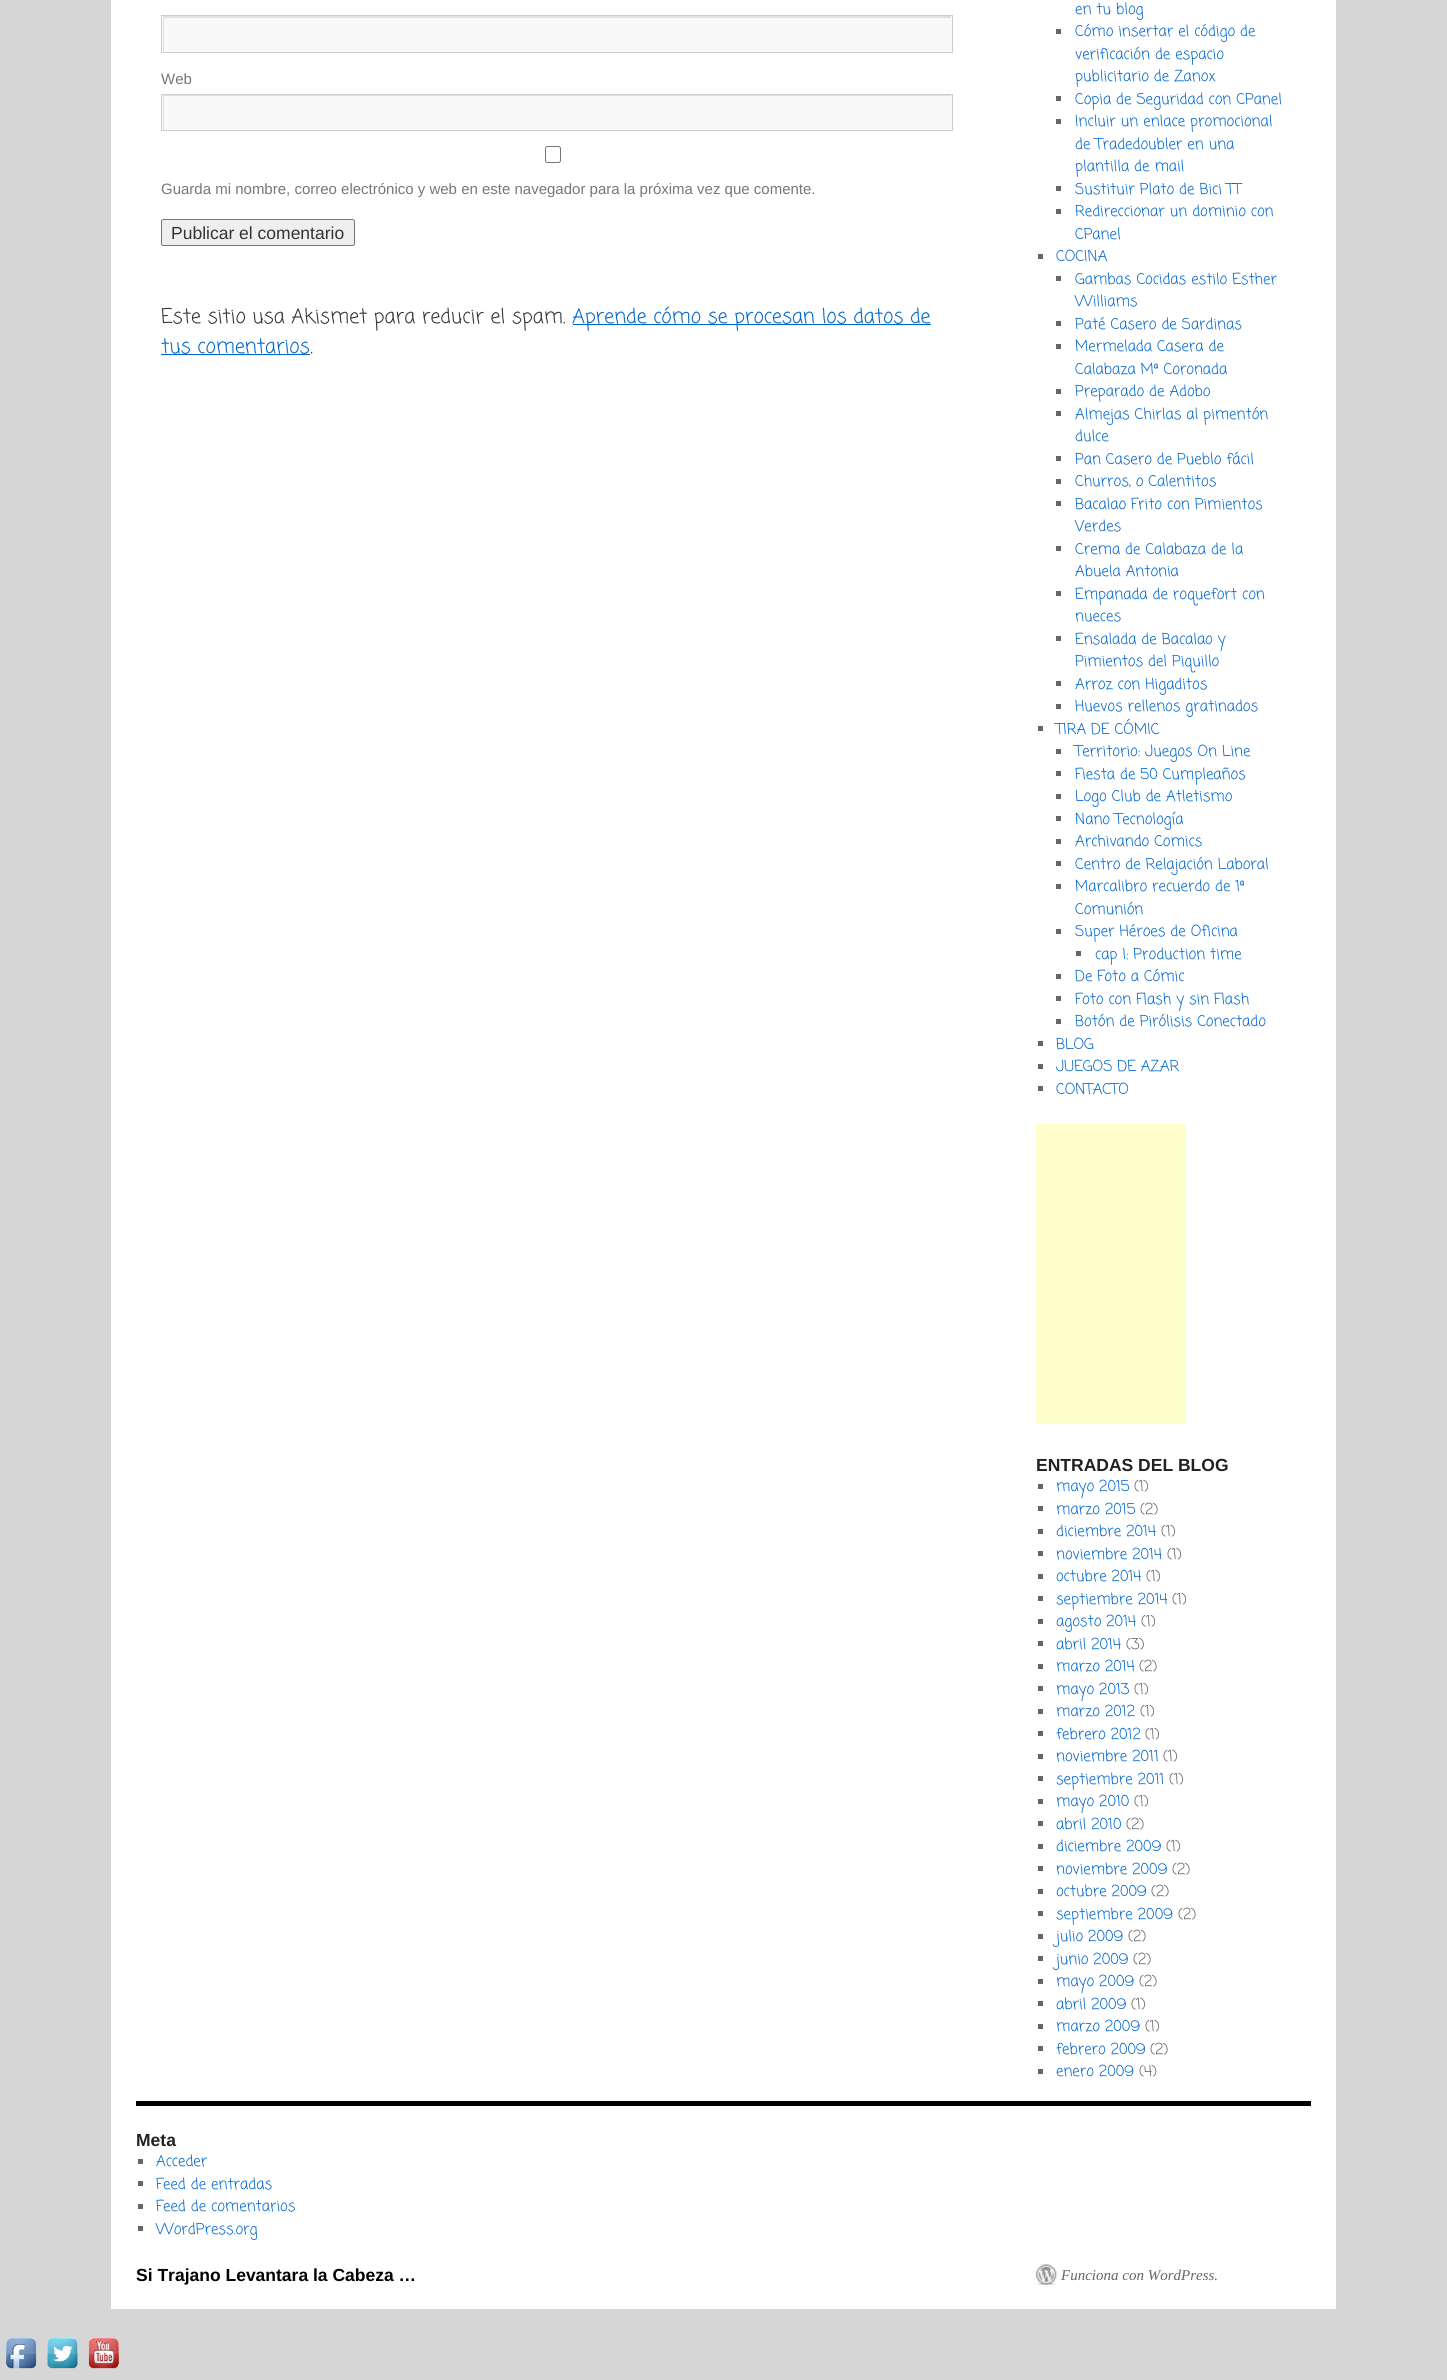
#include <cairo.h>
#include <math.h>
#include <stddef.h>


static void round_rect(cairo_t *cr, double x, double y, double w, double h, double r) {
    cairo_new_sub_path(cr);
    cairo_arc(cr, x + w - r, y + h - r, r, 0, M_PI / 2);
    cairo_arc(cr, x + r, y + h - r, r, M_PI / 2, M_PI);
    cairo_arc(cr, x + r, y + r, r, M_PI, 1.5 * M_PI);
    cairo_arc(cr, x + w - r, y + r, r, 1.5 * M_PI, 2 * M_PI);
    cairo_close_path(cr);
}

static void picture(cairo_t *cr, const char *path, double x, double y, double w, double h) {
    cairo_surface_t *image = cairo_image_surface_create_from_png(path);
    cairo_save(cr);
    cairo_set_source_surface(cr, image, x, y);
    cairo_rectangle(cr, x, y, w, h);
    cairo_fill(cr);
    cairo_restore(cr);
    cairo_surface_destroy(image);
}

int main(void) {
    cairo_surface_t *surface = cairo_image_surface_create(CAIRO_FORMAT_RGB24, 1447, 2380);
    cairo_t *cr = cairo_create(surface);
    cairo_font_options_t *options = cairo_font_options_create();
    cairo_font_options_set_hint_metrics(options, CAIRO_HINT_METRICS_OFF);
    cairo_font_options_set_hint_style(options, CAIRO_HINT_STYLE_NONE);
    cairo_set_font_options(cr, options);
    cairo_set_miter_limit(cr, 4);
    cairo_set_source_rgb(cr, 0.839, 0.839, 0.839);
    cairo_paint(cr);
    cairo_set_source_rgb(cr, 1, 1, 1);
    cairo_rectangle(cr, 111, 0, 1225, 2309);
    cairo_fill(cr);
    cairo_set_source_rgb(cr, 0.976, 0.976, 0.976);
    cairo_rectangle(cr, 162, 16, 790, 36);
    cairo_fill(cr);
    cairo_save(cr);
    cairo_rectangle(cr, 163, 16, 788, 35);
    cairo_clip(cr);
    cairo_set_source_rgb(cr, 0.878, 0.878, 0.878);
    cairo_set_fill_rule(cr, CAIRO_FILL_RULE_EVEN_ODD);
    cairo_new_path(cr);
    cairo_move_to(cr, 39, -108);
    cairo_line_to(cr, 1075, -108);
    cairo_line_to(cr, 1075, 175);
    cairo_line_to(cr, 39, 175);
    cairo_close_path(cr);
    cairo_move_to(cr, 164, 18);
    cairo_line_to(cr, 952, 18);
    cairo_line_to(cr, 952, 52);
    cairo_line_to(cr, 164, 52);
    cairo_close_path(cr);
    cairo_fill(cr);
    cairo_restore(cr);
    cairo_rectangle(cr, 161.5, 15.5, 791, 37);
    cairo_set_source_rgb(cr, 0.8, 0.8, 0.8);
    cairo_set_line_width(cr, 1);
    cairo_stroke(cr);
    cairo_select_font_face(cr, "Liberation Sans", CAIRO_FONT_SLANT_NORMAL, CAIRO_FONT_WEIGHT_NORMAL);
    cairo_set_font_size(cr, 15);
    cairo_set_source_rgb(cr, 0.467, 0.467, 0.467);
    cairo_move_to(cr, 161, 84);
    cairo_show_text(cr, "Web");
    cairo_set_source_rgb(cr, 0.976, 0.976, 0.976);
    cairo_rectangle(cr, 162, 95, 790, 35);
    cairo_fill(cr);
    cairo_save(cr);
    cairo_rectangle(cr, 163, 95, 788, 35);
    cairo_clip(cr);
    cairo_set_source_rgb(cr, 0.878, 0.878, 0.878);
    cairo_set_fill_rule(cr, CAIRO_FILL_RULE_EVEN_ODD);
    cairo_new_path(cr);
    cairo_move_to(cr, 39, -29);
    cairo_line_to(cr, 1075, -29);
    cairo_line_to(cr, 1075, 254);
    cairo_line_to(cr, 39, 254);
    cairo_close_path(cr);
    cairo_move_to(cr, 164, 96);
    cairo_line_to(cr, 952, 96);
    cairo_line_to(cr, 952, 131);
    cairo_line_to(cr, 164, 131);
    cairo_close_path(cr);
    cairo_fill(cr);
    cairo_restore(cr);
    cairo_rectangle(cr, 161.5, 94.5, 791, 36);
    cairo_set_source_rgb(cr, 0.8, 0.8, 0.8);
    cairo_stroke(cr);
    round_rect(cr, 545.5, 146.5, 15, 16, 2);
    cairo_set_source_rgb(cr, 0.463, 0.463, 0.463);
    cairo_stroke(cr);
    cairo_set_source_rgb(cr, 0.467, 0.467, 0.467);
    cairo_move_to(cr, 161, 194);
    cairo_show_text(cr, "Guarda mi nombre, correo electrónico y web en este navegador para la próxima vez que comente.");
    cairo_set_source_rgb(cr, 0.937, 0.937, 0.937);
    round_rect(cr, 161.5, 219.5, 193, 26, 2);
    cairo_fill_preserve(cr);
    cairo_set_source_rgb(cr, 0.463, 0.463, 0.463);
    cairo_stroke(cr);
    cairo_set_font_size(cr, 17.5);
    cairo_set_source_rgb(cr, 0.2, 0.2, 0.2);
    cairo_move_to(cr, 171, 239);
    cairo_show_text(cr, "Publicar el comentario");
    cairo_select_font_face(cr, "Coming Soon", CAIRO_FONT_SLANT_NORMAL, CAIRO_FONT_WEIGHT_NORMAL);
    cairo_set_font_size(cr, 20);
    cairo_move_to(cr, 161, 323);
    cairo_show_text(cr, "Este sitio usa Akismet para reducir el spam.");
    cairo_set_source_rgb(cr, 0, 0.4, 0.8);
    cairo_rectangle(cr, 573, 324, 358, 1);
    cairo_fill(cr);
    cairo_move_to(cr, 572, 323);
    cairo_show_text(cr, "Aprende cómo se procesan los datos de");
    cairo_move_to(cr, 161, 353);
    cairo_show_text(cr, "tus comentarios");
    cairo_rectangle(cr, 161, 354, 149, 1);
    cairo_fill(cr);
    cairo_set_source_rgb(cr, 0.2, 0.2, 0.2);
    cairo_move_to(cr, 310, 353);
    cairo_show_text(cr, ".");
    cairo_set_font_size(cr, 15);
    cairo_set_source_rgb(cr, 0, 0.4, 0.8);
    cairo_move_to(cr, 1075, 14);
    cairo_show_text(cr, "en tu blog");
    cairo_set_source_rgb(cr, 0.4, 0.4, 0.4);
    cairo_rectangle(cr, 1056, 29, 5, 5);
    cairo_fill(cr);
    cairo_set_source_rgb(cr, 0, 0.4, 0.8);
    cairo_move_to(cr, 1075, 36);
    cairo_show_text(cr, "Cómo insertar el código de");
    cairo_move_to(cr, 1075, 59);
    cairo_show_text(cr, "verificación de espacio");
    cairo_move_to(cr, 1075, 81);
    cairo_show_text(cr, "publicitario de Zanox");
    cairo_set_source_rgb(cr, 0.4, 0.4, 0.4);
    cairo_rectangle(cr, 1056, 96, 5, 5);
    cairo_fill(cr);
    cairo_set_source_rgb(cr, 0, 0.4, 0.8);
    cairo_move_to(cr, 1075, 104);
    cairo_show_text(cr, "Copia de Seguridad con CPanel");
    cairo_set_source_rgb(cr, 0.4, 0.4, 0.4);
    cairo_rectangle(cr, 1056, 119, 5, 5);
    cairo_fill(cr);
    cairo_set_source_rgb(cr, 0, 0.4, 0.8);
    cairo_move_to(cr, 1075, 126);
    cairo_show_text(cr, "Incluir un enlace promocional");
    cairo_move_to(cr, 1075, 149);
    cairo_show_text(cr, "de Tradedoubler en una");
    cairo_move_to(cr, 1075, 171);
    cairo_show_text(cr, "plantilla de mail");
    cairo_set_source_rgb(cr, 0.4, 0.4, 0.4);
    cairo_rectangle(cr, 1056, 186, 5, 5);
    cairo_fill(cr);
    cairo_set_source_rgb(cr, 0, 0.4, 0.8);
    cairo_move_to(cr, 1075, 194);
    cairo_show_text(cr, "Sustituir Plato de Bici TT");
    cairo_set_source_rgb(cr, 0.4, 0.4, 0.4);
    cairo_rectangle(cr, 1056, 209, 5, 5);
    cairo_fill(cr);
    cairo_set_source_rgb(cr, 0, 0.4, 0.8);
    cairo_move_to(cr, 1075, 216);
    cairo_show_text(cr, "Redireccionar un dominio con");
    cairo_move_to(cr, 1075, 239);
    cairo_show_text(cr, "CPanel");
    cairo_set_source_rgb(cr, 0.4, 0.4, 0.4);
    cairo_rectangle(cr, 1038, 254, 5, 5);
    cairo_fill(cr);
    cairo_set_source_rgb(cr, 0, 0.4, 0.8);
    cairo_move_to(cr, 1056, 261);
    cairo_show_text(cr, "COCINA");
    cairo_set_source_rgb(cr, 0.4, 0.4, 0.4);
    cairo_rectangle(cr, 1056, 276, 5, 5);
    cairo_fill(cr);
    cairo_set_source_rgb(cr, 0, 0.4, 0.8);
    cairo_move_to(cr, 1075, 284);
    cairo_show_text(cr, "Gambas Cocidas estilo Esther");
    cairo_move_to(cr, 1075, 306);
    cairo_show_text(cr, "Williams");
    cairo_set_source_rgb(cr, 0.4, 0.4, 0.4);
    cairo_rectangle(cr, 1056, 321, 5, 5);
    cairo_fill(cr);
    cairo_set_source_rgb(cr, 0, 0.4, 0.8);
    cairo_move_to(cr, 1075, 329);
    cairo_show_text(cr, "Paté Casero de Sardinas");
    cairo_set_source_rgb(cr, 0.4, 0.4, 0.4);
    cairo_rectangle(cr, 1056, 344, 5, 5);
    cairo_fill(cr);
    cairo_set_source_rgb(cr, 0, 0.4, 0.8);
    cairo_move_to(cr, 1075, 351);
    cairo_show_text(cr, "Mermelada Casera de");
    cairo_move_to(cr, 1075, 374);
    cairo_show_text(cr, "Calabaza Mª Coronada");
    cairo_set_source_rgb(cr, 0.4, 0.4, 0.4);
    cairo_rectangle(cr, 1056, 389, 5, 5);
    cairo_fill(cr);
    cairo_set_source_rgb(cr, 0, 0.4, 0.8);
    cairo_move_to(cr, 1075, 396);
    cairo_show_text(cr, "Preparado de Adobo");
    cairo_set_source_rgb(cr, 0.4, 0.4, 0.4);
    cairo_rectangle(cr, 1056, 411, 5, 5);
    cairo_fill(cr);
    cairo_set_source_rgb(cr, 0, 0.4, 0.8);
    cairo_move_to(cr, 1075, 419);
    cairo_show_text(cr, "Almejas Chirlas al pimentón");
    cairo_move_to(cr, 1075, 441);
    cairo_show_text(cr, "dulce");
    cairo_set_source_rgb(cr, 0.4, 0.4, 0.4);
    cairo_rectangle(cr, 1056, 456, 5, 5);
    cairo_fill(cr);
    cairo_set_source_rgb(cr, 0, 0.4, 0.8);
    cairo_move_to(cr, 1075, 464);
    cairo_show_text(cr, "Pan Casero de Pueblo fácil");
    cairo_set_source_rgb(cr, 0.4, 0.4, 0.4);
    cairo_rectangle(cr, 1056, 479, 5, 5);
    cairo_fill(cr);
    cairo_set_source_rgb(cr, 0, 0.4, 0.8);
    cairo_move_to(cr, 1075, 486);
    cairo_show_text(cr, "Churros, o Calentitos");
    cairo_set_source_rgb(cr, 0.4, 0.4, 0.4);
    cairo_rectangle(cr, 1056, 501, 5, 5);
    cairo_fill(cr);
    cairo_set_source_rgb(cr, 0, 0.4, 0.8);
    cairo_move_to(cr, 1075, 509);
    cairo_show_text(cr, "Bacalao Frito con Pimientos");
    cairo_move_to(cr, 1075, 531);
    cairo_show_text(cr, "Verdes");
    cairo_set_source_rgb(cr, 0.4, 0.4, 0.4);
    cairo_rectangle(cr, 1056, 546, 5, 5);
    cairo_fill(cr);
    cairo_set_source_rgb(cr, 0, 0.4, 0.8);
    cairo_move_to(cr, 1075, 554);
    cairo_show_text(cr, "Crema de Calabaza de la");
    cairo_move_to(cr, 1075, 576);
    cairo_show_text(cr, "Abuela Antonia");
    cairo_set_source_rgb(cr, 0.4, 0.4, 0.4);
    cairo_rectangle(cr, 1056, 591, 5, 5);
    cairo_fill(cr);
    cairo_set_source_rgb(cr, 0, 0.4, 0.8);
    cairo_move_to(cr, 1075, 599);
    cairo_show_text(cr, "Empanada de roquefort con");
    cairo_move_to(cr, 1075, 621);
    cairo_show_text(cr, "nueces");
    cairo_set_source_rgb(cr, 0.4, 0.4, 0.4);
    cairo_rectangle(cr, 1056, 636, 5, 5);
    cairo_fill(cr);
    cairo_set_source_rgb(cr, 0, 0.4, 0.8);
    cairo_move_to(cr, 1075, 644);
    cairo_show_text(cr, "Ensalada de Bacalao y");
    cairo_move_to(cr, 1075, 666);
    cairo_show_text(cr, "Pimientos del Piquillo");
    cairo_set_source_rgb(cr, 0.4, 0.4, 0.4);
    cairo_rectangle(cr, 1056, 681, 5, 5);
    cairo_fill(cr);
    cairo_set_source_rgb(cr, 0, 0.4, 0.8);
    cairo_move_to(cr, 1075, 689);
    cairo_show_text(cr, "Arroz con Higaditos");
    cairo_set_source_rgb(cr, 0.4, 0.4, 0.4);
    cairo_rectangle(cr, 1056, 704, 5, 5);
    cairo_fill(cr);
    cairo_set_source_rgb(cr, 0, 0.4, 0.8);
    cairo_move_to(cr, 1075, 711);
    cairo_show_text(cr, "Huevos rellenos gratinados");
    cairo_set_source_rgb(cr, 0.4, 0.4, 0.4);
    cairo_rectangle(cr, 1038, 726, 5, 5);
    cairo_fill(cr);
    cairo_set_source_rgb(cr, 0, 0.4, 0.8);
    cairo_move_to(cr, 1056, 734);
    cairo_show_text(cr, "TIRA DE CÓMIC");
    cairo_set_source_rgb(cr, 0.4, 0.4, 0.4);
    cairo_rectangle(cr, 1056, 749, 5, 5);
    cairo_fill(cr);
    cairo_set_source_rgb(cr, 0, 0.4, 0.8);
    cairo_move_to(cr, 1075, 756);
    cairo_show_text(cr, "Territorio: Juegos On Line");
    cairo_set_source_rgb(cr, 0.4, 0.4, 0.4);
    cairo_rectangle(cr, 1056, 771, 5, 5);
    cairo_fill(cr);
    cairo_set_source_rgb(cr, 0, 0.4, 0.8);
    cairo_move_to(cr, 1075, 779);
    cairo_show_text(cr, "Fiesta de 50 Cumpleaños");
    cairo_set_source_rgb(cr, 0.4, 0.4, 0.4);
    cairo_rectangle(cr, 1056, 794, 5, 5);
    cairo_fill(cr);
    cairo_set_source_rgb(cr, 0, 0.4, 0.8);
    cairo_move_to(cr, 1075, 801);
    cairo_show_text(cr, "Logo Club de Atletismo");
    cairo_set_source_rgb(cr, 0.4, 0.4, 0.4);
    cairo_rectangle(cr, 1056, 816, 5, 5);
    cairo_fill(cr);
    cairo_set_source_rgb(cr, 0, 0.4, 0.8);
    cairo_move_to(cr, 1075, 824);
    cairo_show_text(cr, "Nano Tecnología");
    cairo_set_source_rgb(cr, 0.4, 0.4, 0.4);
    cairo_rectangle(cr, 1056, 839, 5, 5);
    cairo_fill(cr);
    cairo_set_source_rgb(cr, 0, 0.4, 0.8);
    cairo_move_to(cr, 1075, 846);
    cairo_show_text(cr, "Archivando Comics");
    cairo_set_source_rgb(cr, 0.4, 0.4, 0.4);
    cairo_rectangle(cr, 1056, 861, 5, 5);
    cairo_fill(cr);
    cairo_set_source_rgb(cr, 0, 0.4, 0.8);
    cairo_move_to(cr, 1075, 869);
    cairo_show_text(cr, "Centro de Relajación Laboral");
    cairo_set_source_rgb(cr, 0.4, 0.4, 0.4);
    cairo_rectangle(cr, 1056, 884, 5, 5);
    cairo_fill(cr);
    cairo_set_source_rgb(cr, 0, 0.4, 0.8);
    cairo_move_to(cr, 1075, 891);
    cairo_show_text(cr, "Marcalibro recuerdo de 1ª");
    cairo_move_to(cr, 1075, 914);
    cairo_show_text(cr, "Comunión");
    cairo_set_source_rgb(cr, 0.4, 0.4, 0.4);
    cairo_rectangle(cr, 1056, 929, 5, 5);
    cairo_fill(cr);
    cairo_set_source_rgb(cr, 0, 0.4, 0.8);
    cairo_move_to(cr, 1075, 936);
    cairo_show_text(cr, "Super Héroes de Oficina");
    cairo_set_source_rgb(cr, 0.4, 0.4, 0.4);
    cairo_rectangle(cr, 1076, 951, 5, 5);
    cairo_fill(cr);
    cairo_set_source_rgb(cr, 0, 0.4, 0.8);
    cairo_move_to(cr, 1095, 959);
    cairo_show_text(cr, "cap I: Production time");
    cairo_set_source_rgb(cr, 0.4, 0.4, 0.4);
    cairo_rectangle(cr, 1056, 974, 5, 5);
    cairo_fill(cr);
    cairo_set_source_rgb(cr, 0, 0.4, 0.8);
    cairo_move_to(cr, 1075, 981);
    cairo_show_text(cr, "De Foto a Cómic");
    cairo_set_source_rgb(cr, 0.4, 0.4, 0.4);
    cairo_rectangle(cr, 1056, 996, 5, 5);
    cairo_fill(cr);
    cairo_set_source_rgb(cr, 0, 0.4, 0.8);
    cairo_move_to(cr, 1075, 1004);
    cairo_show_text(cr, "Foto con Flash y sin Flash");
    cairo_set_source_rgb(cr, 0.4, 0.4, 0.4);
    cairo_rectangle(cr, 1056, 1019, 5, 5);
    cairo_fill(cr);
    cairo_set_source_rgb(cr, 0, 0.4, 0.8);
    cairo_move_to(cr, 1075, 1026);
    cairo_show_text(cr, "Botón de Pirólisis Conectado");
    cairo_set_source_rgb(cr, 0.4, 0.4, 0.4);
    cairo_rectangle(cr, 1038, 1041, 5, 5);
    cairo_fill(cr);
    cairo_set_source_rgb(cr, 0, 0.4, 0.8);
    cairo_move_to(cr, 1056, 1049);
    cairo_show_text(cr, "BLOG");
    cairo_set_source_rgb(cr, 0.4, 0.4, 0.4);
    cairo_rectangle(cr, 1038, 1064, 5, 5);
    cairo_fill(cr);
    cairo_set_source_rgb(cr, 0, 0.4, 0.8);
    cairo_move_to(cr, 1056, 1071);
    cairo_show_text(cr, "JUEGOS DE AZAR");
    cairo_set_source_rgb(cr, 0.4, 0.4, 0.4);
    cairo_rectangle(cr, 1038, 1086, 5, 5);
    cairo_fill(cr);
    cairo_set_source_rgb(cr, 0, 0.4, 0.8);
    cairo_move_to(cr, 1056, 1094);
    cairo_show_text(cr, "CONTACTO");
    cairo_set_source_rgb(cr, 1, 1, 0.8);
    cairo_rectangle(cr, 1036, 1124, 150, 300);
    cairo_fill(cr);
    cairo_select_font_face(cr, "Liberation Sans", CAIRO_FONT_SLANT_NORMAL, CAIRO_FONT_WEIGHT_BOLD);
    cairo_set_font_size(cr, 17.5);
    cairo_set_source_rgb(cr, 0.133, 0.133, 0.133);
    cairo_move_to(cr, 1036, 1471);
    cairo_show_text(cr, "ENTRADAS DEL BLOG");
    cairo_set_source_rgb(cr, 0.4, 0.4, 0.4);
    cairo_rectangle(cr, 1038, 1484, 5, 5);
    cairo_fill(cr);
    cairo_select_font_face(cr, "Coming Soon", CAIRO_FONT_SLANT_NORMAL, CAIRO_FONT_WEIGHT_NORMAL);
    cairo_set_font_size(cr, 15);
    cairo_set_source_rgb(cr, 0, 0.4, 0.8);
    cairo_move_to(cr, 1056, 1491);
    cairo_show_text(cr, "mayo 2015");
    cairo_set_source_rgb(cr, 0.4, 0.4, 0.4);
    cairo_move_to(cr, 1134, 1491);
    cairo_show_text(cr, "(1)");
    cairo_rectangle(cr, 1038, 1506, 5, 5);
    cairo_fill(cr);
    cairo_set_source_rgb(cr, 0, 0.4, 0.8);
    cairo_move_to(cr, 1056, 1514);
    cairo_show_text(cr, "marzo 2015");
    cairo_set_source_rgb(cr, 0.4, 0.4, 0.4);
    cairo_move_to(cr, 1140, 1514);
    cairo_show_text(cr, "(2)");
    cairo_rectangle(cr, 1038, 1529, 5, 5);
    cairo_fill(cr);
    cairo_set_source_rgb(cr, 0, 0.4, 0.8);
    cairo_move_to(cr, 1056, 1536);
    cairo_show_text(cr, "diciembre 2014");
    cairo_set_source_rgb(cr, 0.4, 0.4, 0.4);
    cairo_move_to(cr, 1161, 1536);
    cairo_show_text(cr, "(1)");
    cairo_rectangle(cr, 1038, 1551, 5, 5);
    cairo_fill(cr);
    cairo_set_source_rgb(cr, 0, 0.4, 0.8);
    cairo_move_to(cr, 1056, 1559);
    cairo_show_text(cr, "noviembre 2014");
    cairo_set_source_rgb(cr, 0.4, 0.4, 0.4);
    cairo_move_to(cr, 1167, 1559);
    cairo_show_text(cr, "(1)");
    cairo_rectangle(cr, 1038, 1574, 5, 5);
    cairo_fill(cr);
    cairo_set_source_rgb(cr, 0, 0.4, 0.8);
    cairo_move_to(cr, 1056, 1581);
    cairo_show_text(cr, "octubre 2014");
    cairo_set_source_rgb(cr, 0.4, 0.4, 0.4);
    cairo_move_to(cr, 1146, 1581);
    cairo_show_text(cr, "(1)");
    cairo_rectangle(cr, 1038, 1596, 5, 5);
    cairo_fill(cr);
    cairo_set_source_rgb(cr, 0, 0.4, 0.8);
    cairo_move_to(cr, 1056, 1604);
    cairo_show_text(cr, "septiembre 2014");
    cairo_set_source_rgb(cr, 0.4, 0.4, 0.4);
    cairo_move_to(cr, 1172, 1604);
    cairo_show_text(cr, "(1)");
    cairo_rectangle(cr, 1038, 1619, 5, 5);
    cairo_fill(cr);
    cairo_set_source_rgb(cr, 0, 0.4, 0.8);
    cairo_move_to(cr, 1056, 1626);
    cairo_show_text(cr, "agosto 2014");
    cairo_set_source_rgb(cr, 0.4, 0.4, 0.4);
    cairo_move_to(cr, 1141, 1626);
    cairo_show_text(cr, "(1)");
    cairo_rectangle(cr, 1038, 1641, 5, 5);
    cairo_fill(cr);
    cairo_set_source_rgb(cr, 0, 0.4, 0.8);
    cairo_move_to(cr, 1056, 1649);
    cairo_show_text(cr, "abril 2014");
    cairo_set_source_rgb(cr, 0.4, 0.4, 0.4);
    cairo_move_to(cr, 1126, 1649);
    cairo_show_text(cr, "(3)");
    cairo_rectangle(cr, 1038, 1664, 5, 5);
    cairo_fill(cr);
    cairo_set_source_rgb(cr, 0, 0.4, 0.8);
    cairo_move_to(cr, 1056, 1671);
    cairo_show_text(cr, "marzo 2014");
    cairo_set_source_rgb(cr, 0.4, 0.4, 0.4);
    cairo_move_to(cr, 1139, 1671);
    cairo_show_text(cr, "(2)");
    cairo_rectangle(cr, 1038, 1686, 5, 5);
    cairo_fill(cr);
    cairo_set_source_rgb(cr, 0, 0.4, 0.8);
    cairo_move_to(cr, 1056, 1694);
    cairo_show_text(cr, "mayo 2013");
    cairo_set_source_rgb(cr, 0.4, 0.4, 0.4);
    cairo_move_to(cr, 1134, 1694);
    cairo_show_text(cr, "(1)");
    cairo_rectangle(cr, 1038, 1709, 5, 5);
    cairo_fill(cr);
    cairo_set_source_rgb(cr, 0, 0.4, 0.8);
    cairo_move_to(cr, 1056, 1716);
    cairo_show_text(cr, "marzo 2012");
    cairo_set_source_rgb(cr, 0.4, 0.4, 0.4);
    cairo_move_to(cr, 1140, 1716);
    cairo_show_text(cr, "(1)");
    cairo_rectangle(cr, 1038, 1731, 5, 5);
    cairo_fill(cr);
    cairo_set_source_rgb(cr, 0, 0.4, 0.8);
    cairo_move_to(cr, 1056, 1739);
    cairo_show_text(cr, "febrero 2012");
    cairo_set_source_rgb(cr, 0.4, 0.4, 0.4);
    cairo_move_to(cr, 1145, 1739);
    cairo_show_text(cr, "(1)");
    cairo_rectangle(cr, 1038, 1754, 5, 5);
    cairo_fill(cr);
    cairo_set_source_rgb(cr, 0, 0.4, 0.8);
    cairo_move_to(cr, 1056, 1761);
    cairo_show_text(cr, "noviembre 2011");
    cairo_set_source_rgb(cr, 0.4, 0.4, 0.4);
    cairo_move_to(cr, 1163, 1761);
    cairo_show_text(cr, "(1)");
    cairo_rectangle(cr, 1038, 1776, 5, 5);
    cairo_fill(cr);
    cairo_set_source_rgb(cr, 0, 0.4, 0.8);
    cairo_move_to(cr, 1056, 1784);
    cairo_show_text(cr, "septiembre 2011");
    cairo_set_source_rgb(cr, 0.4, 0.4, 0.4);
    cairo_move_to(cr, 1169, 1784);
    cairo_show_text(cr, "(1)");
    cairo_rectangle(cr, 1038, 1799, 5, 5);
    cairo_fill(cr);
    cairo_set_source_rgb(cr, 0, 0.4, 0.8);
    cairo_move_to(cr, 1056, 1806);
    cairo_show_text(cr, "mayo 2010");
    cairo_set_source_rgb(cr, 0.4, 0.4, 0.4);
    cairo_move_to(cr, 1134, 1806);
    cairo_show_text(cr, "(1)");
    cairo_rectangle(cr, 1038, 1821, 5, 5);
    cairo_fill(cr);
    cairo_set_source_rgb(cr, 0, 0.4, 0.8);
    cairo_move_to(cr, 1056, 1829);
    cairo_show_text(cr, "abril 2010");
    cairo_set_source_rgb(cr, 0.4, 0.4, 0.4);
    cairo_move_to(cr, 1126, 1829);
    cairo_show_text(cr, "(2)");
    cairo_rectangle(cr, 1038, 1844, 5, 5);
    cairo_fill(cr);
    cairo_set_source_rgb(cr, 0, 0.4, 0.8);
    cairo_move_to(cr, 1056, 1851);
    cairo_show_text(cr, "diciembre 2009");
    cairo_set_source_rgb(cr, 0.4, 0.4, 0.4);
    cairo_move_to(cr, 1166, 1851);
    cairo_show_text(cr, "(1)");
    cairo_rectangle(cr, 1038, 1866, 5, 5);
    cairo_fill(cr);
    cairo_set_source_rgb(cr, 0, 0.4, 0.8);
    cairo_move_to(cr, 1056, 1874);
    cairo_show_text(cr, "noviembre 2009");
    cairo_set_source_rgb(cr, 0.4, 0.4, 0.4);
    cairo_move_to(cr, 1172, 1874);
    cairo_show_text(cr, "(2)");
    cairo_rectangle(cr, 1038, 1889, 5, 5);
    cairo_fill(cr);
    cairo_set_source_rgb(cr, 0, 0.4, 0.8);
    cairo_move_to(cr, 1056, 1896);
    cairo_show_text(cr, "octubre 2009");
    cairo_set_source_rgb(cr, 0.4, 0.4, 0.4);
    cairo_move_to(cr, 1151, 1896);
    cairo_show_text(cr, "(2)");
    cairo_rectangle(cr, 1038, 1911, 5, 5);
    cairo_fill(cr);
    cairo_set_source_rgb(cr, 0, 0.4, 0.8);
    cairo_move_to(cr, 1056, 1919);
    cairo_show_text(cr, "septiembre 2009");
    cairo_set_source_rgb(cr, 0.4, 0.4, 0.4);
    cairo_move_to(cr, 1178, 1919);
    cairo_show_text(cr, "(2)");
    cairo_rectangle(cr, 1038, 1934, 5, 5);
    cairo_fill(cr);
    cairo_set_source_rgb(cr, 0, 0.4, 0.8);
    cairo_move_to(cr, 1056, 1941);
    cairo_show_text(cr, "julio 2009");
    cairo_set_source_rgb(cr, 0.4, 0.4, 0.4);
    cairo_move_to(cr, 1128, 1941);
    cairo_show_text(cr, "(2)");
    cairo_rectangle(cr, 1038, 1956, 5, 5);
    cairo_fill(cr);
    cairo_set_source_rgb(cr, 0, 0.4, 0.8);
    cairo_move_to(cr, 1056, 1964);
    cairo_show_text(cr, "junio 2009");
    cairo_set_source_rgb(cr, 0.4, 0.4, 0.4);
    cairo_move_to(cr, 1133, 1964);
    cairo_show_text(cr, "(2)");
    cairo_rectangle(cr, 1038, 1979, 5, 5);
    cairo_fill(cr);
    cairo_set_source_rgb(cr, 0, 0.4, 0.8);
    cairo_move_to(cr, 1056, 1986);
    cairo_show_text(cr, "mayo 2009");
    cairo_set_source_rgb(cr, 0.4, 0.4, 0.4);
    cairo_move_to(cr, 1139, 1986);
    cairo_show_text(cr, "(2)");
    cairo_rectangle(cr, 1038, 2001, 5, 5);
    cairo_fill(cr);
    cairo_set_source_rgb(cr, 0, 0.4, 0.8);
    cairo_move_to(cr, 1056, 2009);
    cairo_show_text(cr, "abril 2009");
    cairo_set_source_rgb(cr, 0.4, 0.4, 0.4);
    cairo_move_to(cr, 1131, 2009);
    cairo_show_text(cr, "(1)");
    cairo_rectangle(cr, 1038, 2024, 5, 5);
    cairo_fill(cr);
    cairo_set_source_rgb(cr, 0, 0.4, 0.8);
    cairo_move_to(cr, 1056, 2031);
    cairo_show_text(cr, "marzo 2009");
    cairo_set_source_rgb(cr, 0.4, 0.4, 0.4);
    cairo_move_to(cr, 1145, 2031);
    cairo_show_text(cr, "(1)");
    cairo_rectangle(cr, 1038, 2046, 5, 5);
    cairo_fill(cr);
    cairo_set_source_rgb(cr, 0, 0.4, 0.8);
    cairo_move_to(cr, 1056, 2054);
    cairo_show_text(cr, "febrero 2009");
    cairo_set_source_rgb(cr, 0.4, 0.4, 0.4);
    cairo_move_to(cr, 1150, 2054);
    cairo_show_text(cr, "(2)");
    cairo_rectangle(cr, 1038, 2069, 5, 5);
    cairo_fill(cr);
    cairo_set_source_rgb(cr, 0, 0.4, 0.8);
    cairo_move_to(cr, 1056, 2076);
    cairo_show_text(cr, "enero 2009");
    cairo_set_source_rgb(cr, 0.4, 0.4, 0.4);
    cairo_move_to(cr, 1139, 2076);
    cairo_show_text(cr, "(4)");
    cairo_set_source_rgb(cr, 0, 0, 0);
    cairo_rectangle(cr, 136, 2101, 1175, 5);
    cairo_fill(cr);
    cairo_select_font_face(cr, "Liberation Sans", CAIRO_FONT_SLANT_NORMAL, CAIRO_FONT_WEIGHT_BOLD);
    cairo_set_font_size(cr, 17.5);
    cairo_set_source_rgb(cr, 0.133, 0.133, 0.133);
    cairo_move_to(cr, 136, 2146);
    cairo_show_text(cr, "Meta");
    cairo_set_source_rgb(cr, 0.4, 0.4, 0.4);
    cairo_rectangle(cr, 138, 2159, 5, 5);
    cairo_fill(cr);
    cairo_select_font_face(cr, "Coming Soon", CAIRO_FONT_SLANT_NORMAL, CAIRO_FONT_WEIGHT_NORMAL);
    cairo_set_font_size(cr, 15);
    cairo_set_source_rgb(cr, 0, 0.4, 0.8);
    cairo_move_to(cr, 156, 2166);
    cairo_show_text(cr, "Acceder");
    cairo_set_source_rgb(cr, 0.4, 0.4, 0.4);
    cairo_rectangle(cr, 138, 2181, 5, 5);
    cairo_fill(cr);
    cairo_set_source_rgb(cr, 0, 0.4, 0.8);
    cairo_move_to(cr, 156, 2189);
    cairo_show_text(cr, "Feed de entradas");
    cairo_set_source_rgb(cr, 0.4, 0.4, 0.4);
    cairo_rectangle(cr, 138, 2204, 5, 5);
    cairo_fill(cr);
    cairo_set_source_rgb(cr, 0, 0.4, 0.8);
    cairo_move_to(cr, 156, 2211);
    cairo_show_text(cr, "Feed de comentarios");
    cairo_set_source_rgb(cr, 0.4, 0.4, 0.4);
    cairo_rectangle(cr, 138, 2226, 5, 5);
    cairo_fill(cr);
    cairo_set_source_rgb(cr, 0, 0.4, 0.8);
    cairo_move_to(cr, 156, 2234);
    cairo_show_text(cr, "WordPress.org");
    cairo_select_font_face(cr, "Liberation Sans", CAIRO_FONT_SLANT_NORMAL, CAIRO_FONT_WEIGHT_BOLD);
    cairo_set_font_size(cr, 17.5);
    cairo_set_source_rgb(cr, 0, 0, 0);
    cairo_move_to(cr, 136, 2281);
    cairo_show_text(cr, "Si Trajano Levantara la Cabeza …");
    picture(cr, "img1.png", 1036, 2264, 21, 21);
    cairo_select_font_face(cr, "Liberation Serif", CAIRO_FONT_SLANT_ITALIC, CAIRO_FONT_WEIGHT_NORMAL);
    cairo_set_font_size(cr, 15);
    cairo_set_source_rgb(cr, 0.4, 0.4, 0.4);
    cairo_move_to(cr, 1061, 2280);
    cairo_show_text(cr, "Funciona con WordPress.");
    picture(cr, "img2.png", 6, 2338, 31, 31);
    picture(cr, "img3.png", 47, 2338, 31, 31);
    picture(cr, "img4.png", 88, 2338, 31, 31);
    cairo_surface_write_to_png(surface, "page.png");
    cairo_font_options_destroy(options);
    cairo_destroy(cr);
    cairo_surface_destroy(surface);
    return 0;
}
